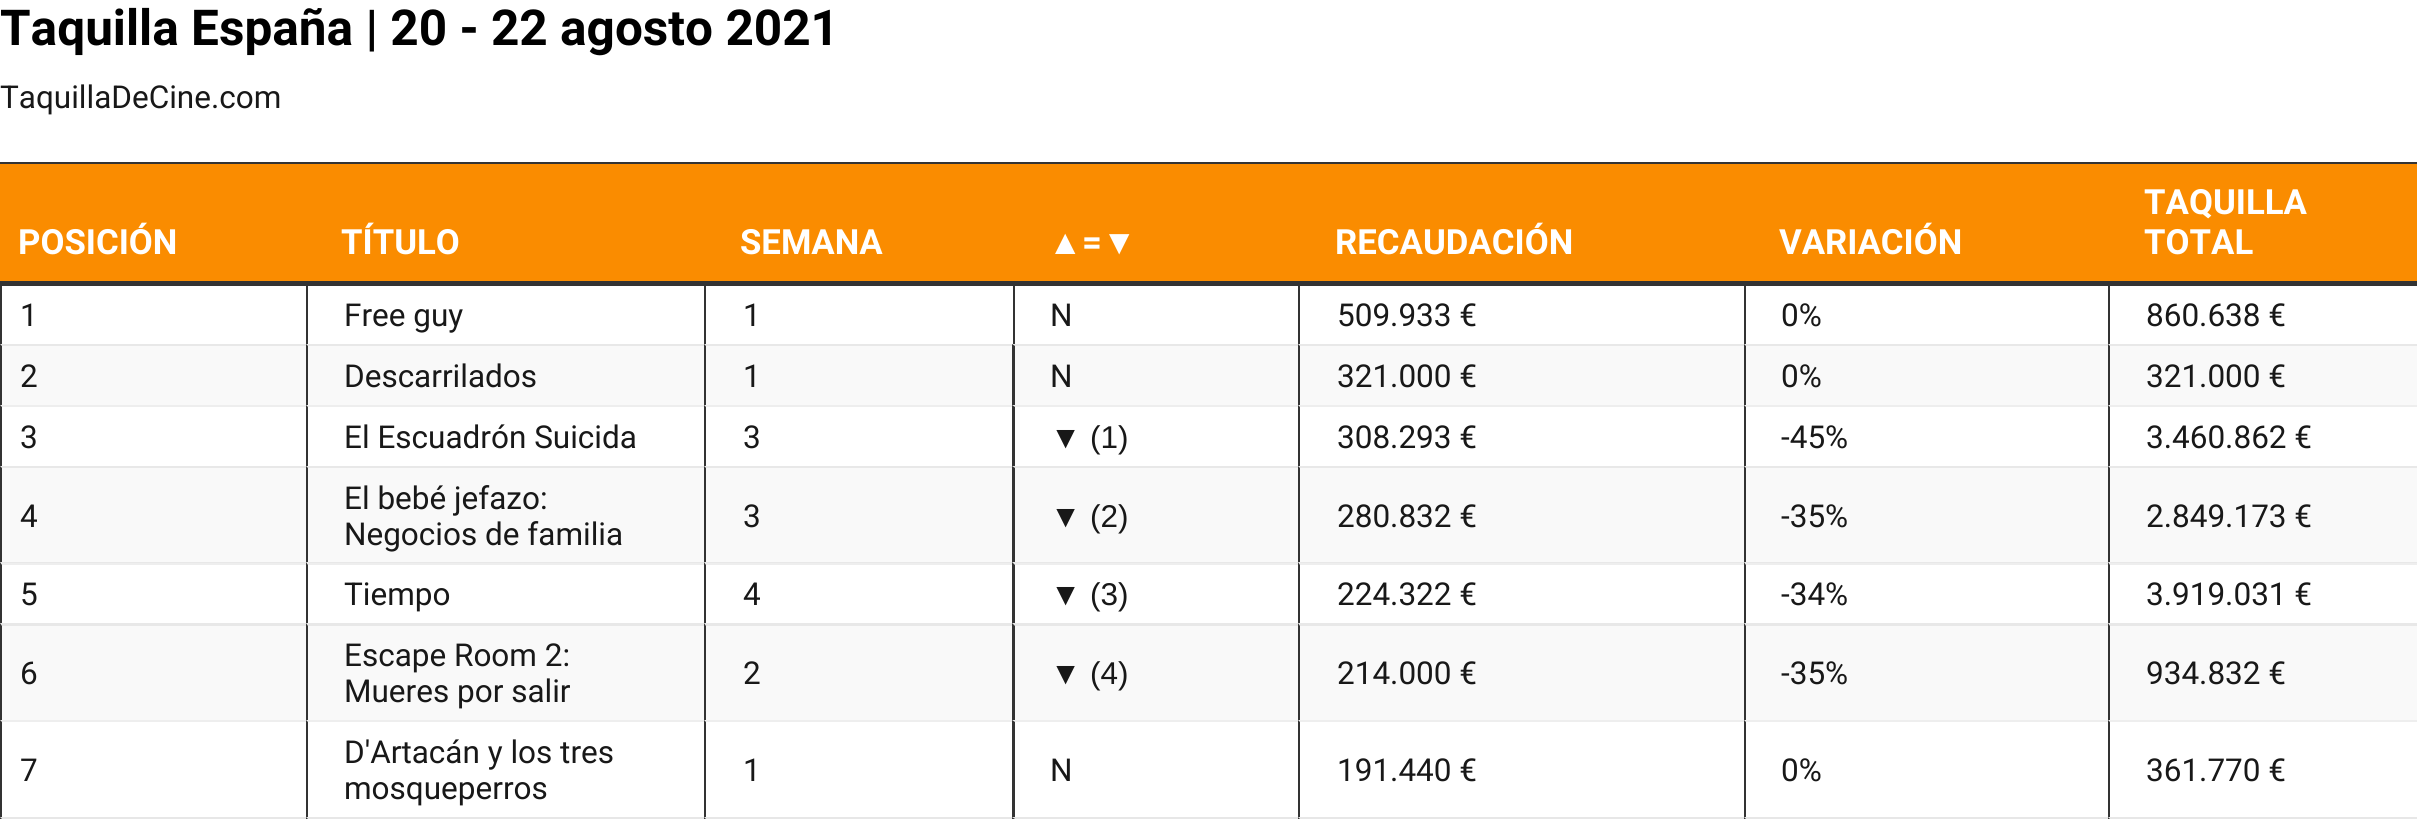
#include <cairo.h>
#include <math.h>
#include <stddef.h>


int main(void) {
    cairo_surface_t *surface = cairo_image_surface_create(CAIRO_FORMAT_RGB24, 2417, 819);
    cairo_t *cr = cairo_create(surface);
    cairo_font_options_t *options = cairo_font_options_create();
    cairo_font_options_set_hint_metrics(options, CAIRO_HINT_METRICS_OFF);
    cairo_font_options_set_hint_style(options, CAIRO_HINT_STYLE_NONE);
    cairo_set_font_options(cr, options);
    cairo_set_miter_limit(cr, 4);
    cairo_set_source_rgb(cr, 1, 1, 1);
    cairo_paint(cr);
    cairo_select_font_face(cr, "Roboto", CAIRO_FONT_SLANT_NORMAL, CAIRO_FONT_WEIGHT_BOLD);
    cairo_set_font_size(cr, 49.5);
    cairo_set_source_rgb(cr, 0, 0, 0);
    cairo_move_to(cr, 0, 45);
    cairo_show_text(cr, "Taquilla España | 20 - 22 agosto 2021");
    cairo_select_font_face(cr, "Roboto", CAIRO_FONT_SLANT_NORMAL, CAIRO_FONT_WEIGHT_NORMAL);
    cairo_set_font_size(cr, 31.5);
    cairo_set_source_rgb(cr, 0.094, 0.094, 0.094);
    cairo_move_to(cr, 0, 108);
    cairo_show_text(cr, "TaquillaDeCine.com");
    cairo_set_source_rgb(cr, 0.98, 0.549, 0);
    cairo_rectangle(cr, 0, 164, 2417, 117);
    cairo_fill(cr);
    cairo_set_source_rgb(cr, 0.2, 0.2, 0.2);
    cairo_rectangle(cr, 0, 162, 2417, 2);
    cairo_fill(cr);
    cairo_rectangle(cr, 0, 281, 2417, 5);
    cairo_fill(cr);
    cairo_select_font_face(cr, "Roboto", CAIRO_FONT_SLANT_NORMAL, CAIRO_FONT_WEIGHT_BOLD);
    cairo_set_font_size(cr, 34.75);
    cairo_set_source_rgb(cr, 1, 1, 1);
    cairo_move_to(cr, 18, 254);
    cairo_show_text(cr, "POSICIÓN");
    cairo_move_to(cr, 341, 254);
    cairo_show_text(cr, "TÍTULO");
    cairo_move_to(cr, 740, 254);
    cairo_show_text(cr, "SEMANA");
    cairo_select_font_face(cr, "Liberation Sans", CAIRO_FONT_SLANT_NORMAL, CAIRO_FONT_WEIGHT_BOLD);
    cairo_move_to(cr, 1048, 254);
    cairo_show_text(cr, "▲");
    cairo_select_font_face(cr, "Roboto", CAIRO_FONT_SLANT_NORMAL, CAIRO_FONT_WEIGHT_BOLD);
    cairo_move_to(cr, 1082, 254);
    cairo_show_text(cr, "=");
    cairo_select_font_face(cr, "Liberation Sans", CAIRO_FONT_SLANT_NORMAL, CAIRO_FONT_WEIGHT_BOLD);
    cairo_move_to(cr, 1102, 254);
    cairo_show_text(cr, "▼");
    cairo_select_font_face(cr, "Roboto", CAIRO_FONT_SLANT_NORMAL, CAIRO_FONT_WEIGHT_BOLD);
    cairo_move_to(cr, 1335, 254);
    cairo_show_text(cr, "RECAUDACIÓN");
    cairo_move_to(cr, 1779, 254);
    cairo_show_text(cr, "VARIACIÓN");
    cairo_move_to(cr, 2144, 214);
    cairo_show_text(cr, "TAQUILLA");
    cairo_move_to(cr, 2144, 254);
    cairo_show_text(cr, "TOTAL");
    cairo_set_source_rgb(cr, 0.2, 0.2, 0.2);
    cairo_rectangle(cr, 0, 286, 2, 58);
    cairo_fill(cr);
    cairo_select_font_face(cr, "Roboto", CAIRO_FONT_SLANT_NORMAL, CAIRO_FONT_WEIGHT_NORMAL);
    cairo_set_font_size(cr, 31.5);
    cairo_set_source_rgb(cr, 0.094, 0.094, 0.094);
    cairo_move_to(cr, 20, 326);
    cairo_show_text(cr, "1");
    cairo_set_source_rgb(cr, 0.2, 0.2, 0.2);
    cairo_rectangle(cr, 306, 286, 2, 58);
    cairo_fill(cr);
    cairo_set_source_rgb(cr, 0.094, 0.094, 0.094);
    cairo_move_to(cr, 344, 326);
    cairo_show_text(cr, "Free guy");
    cairo_set_source_rgb(cr, 0.2, 0.2, 0.2);
    cairo_rectangle(cr, 704, 286, 2, 58);
    cairo_fill(cr);
    cairo_set_source_rgb(cr, 0.094, 0.094, 0.094);
    cairo_move_to(cr, 743, 326);
    cairo_show_text(cr, "1");
    cairo_set_source_rgb(cr, 0.2, 0.2, 0.2);
    cairo_rectangle(cr, 1013, 286, 2, 58);
    cairo_fill(cr);
    cairo_set_source_rgb(cr, 0.094, 0.094, 0.094);
    cairo_move_to(cr, 1050, 326);
    cairo_show_text(cr, "N");
    cairo_set_source_rgb(cr, 0.2, 0.2, 0.2);
    cairo_rectangle(cr, 1298, 286, 2, 58);
    cairo_fill(cr);
    cairo_set_source_rgb(cr, 0.094, 0.094, 0.094);
    cairo_move_to(cr, 1337, 326);
    cairo_show_text(cr, "509.933 €");
    cairo_set_source_rgb(cr, 0.2, 0.2, 0.2);
    cairo_rectangle(cr, 1744, 286, 2, 58);
    cairo_fill(cr);
    cairo_set_source_rgb(cr, 0.094, 0.094, 0.094);
    cairo_move_to(cr, 1781, 326);
    cairo_show_text(cr, "0%");
    cairo_set_source_rgb(cr, 0.2, 0.2, 0.2);
    cairo_rectangle(cr, 2108, 286, 2, 58);
    cairo_fill(cr);
    cairo_set_source_rgb(cr, 0.094, 0.094, 0.094);
    cairo_move_to(cr, 2146, 326);
    cairo_show_text(cr, "860.638 €");
    cairo_set_source_rgb(cr, 0.976, 0.976, 0.976);
    cairo_rectangle(cr, 0, 344, 2417, 61);
    cairo_fill(cr);
    cairo_set_source_rgb(cr, 0.91, 0.91, 0.91);
    cairo_new_path(cr);
    cairo_move_to(cr, 0, 344);
    cairo_line_to(cr, 306, 344);
    cairo_line_to(cr, 306, 346);
    cairo_line_to(cr, 2, 346);
    cairo_close_path(cr);
    cairo_fill(cr);
    cairo_set_source_rgb(cr, 0.2, 0.2, 0.2);
    cairo_new_path(cr);
    cairo_move_to(cr, 0, 405);
    cairo_line_to(cr, 0, 344);
    cairo_line_to(cr, 2, 346);
    cairo_line_to(cr, 2, 405);
    cairo_close_path(cr);
    cairo_fill(cr);
    cairo_set_source_rgb(cr, 0.094, 0.094, 0.094);
    cairo_move_to(cr, 20, 387);
    cairo_show_text(cr, "2");
    cairo_set_source_rgb(cr, 0.91, 0.91, 0.91);
    cairo_new_path(cr);
    cairo_move_to(cr, 306, 344);
    cairo_line_to(cr, 704, 344);
    cairo_line_to(cr, 704, 346);
    cairo_line_to(cr, 308, 346);
    cairo_close_path(cr);
    cairo_fill(cr);
    cairo_set_source_rgb(cr, 0.2, 0.2, 0.2);
    cairo_new_path(cr);
    cairo_move_to(cr, 306, 405);
    cairo_line_to(cr, 306, 344);
    cairo_line_to(cr, 308, 346);
    cairo_line_to(cr, 308, 405);
    cairo_close_path(cr);
    cairo_fill(cr);
    cairo_set_source_rgb(cr, 0.094, 0.094, 0.094);
    cairo_move_to(cr, 344, 387);
    cairo_show_text(cr, "Descarrilados");
    cairo_set_source_rgb(cr, 0.91, 0.91, 0.91);
    cairo_new_path(cr);
    cairo_move_to(cr, 704, 344);
    cairo_line_to(cr, 1012, 344);
    cairo_line_to(cr, 1012, 346);
    cairo_line_to(cr, 706, 346);
    cairo_close_path(cr);
    cairo_fill(cr);
    cairo_set_source_rgb(cr, 0.2, 0.2, 0.2);
    cairo_new_path(cr);
    cairo_move_to(cr, 704, 405);
    cairo_line_to(cr, 704, 344);
    cairo_line_to(cr, 706, 346);
    cairo_line_to(cr, 706, 405);
    cairo_close_path(cr);
    cairo_fill(cr);
    cairo_set_source_rgb(cr, 0.094, 0.094, 0.094);
    cairo_move_to(cr, 743, 387);
    cairo_show_text(cr, "1");
    cairo_set_source_rgb(cr, 0.91, 0.91, 0.91);
    cairo_new_path(cr);
    cairo_move_to(cr, 1012, 344);
    cairo_line_to(cr, 1298, 344);
    cairo_line_to(cr, 1298, 346);
    cairo_line_to(cr, 1015, 346);
    cairo_close_path(cr);
    cairo_fill(cr);
    cairo_set_source_rgb(cr, 0.2, 0.2, 0.2);
    cairo_new_path(cr);
    cairo_move_to(cr, 1012, 405);
    cairo_line_to(cr, 1012, 344);
    cairo_line_to(cr, 1015, 346);
    cairo_line_to(cr, 1015, 405);
    cairo_close_path(cr);
    cairo_fill(cr);
    cairo_set_source_rgb(cr, 0.094, 0.094, 0.094);
    cairo_move_to(cr, 1050, 387);
    cairo_show_text(cr, "N");
    cairo_set_source_rgb(cr, 0.91, 0.91, 0.91);
    cairo_new_path(cr);
    cairo_move_to(cr, 1298, 344);
    cairo_line_to(cr, 1744, 344);
    cairo_line_to(cr, 1744, 346);
    cairo_line_to(cr, 1300, 346);
    cairo_close_path(cr);
    cairo_fill(cr);
    cairo_set_source_rgb(cr, 0.2, 0.2, 0.2);
    cairo_new_path(cr);
    cairo_move_to(cr, 1298, 405);
    cairo_line_to(cr, 1298, 344);
    cairo_line_to(cr, 1300, 346);
    cairo_line_to(cr, 1300, 405);
    cairo_close_path(cr);
    cairo_fill(cr);
    cairo_set_source_rgb(cr, 0.094, 0.094, 0.094);
    cairo_move_to(cr, 1337, 387);
    cairo_show_text(cr, "321.000 €");
    cairo_set_source_rgb(cr, 0.91, 0.91, 0.91);
    cairo_new_path(cr);
    cairo_move_to(cr, 1744, 344);
    cairo_line_to(cr, 2108, 344);
    cairo_line_to(cr, 2108, 346);
    cairo_line_to(cr, 1746, 346);
    cairo_close_path(cr);
    cairo_fill(cr);
    cairo_set_source_rgb(cr, 0.2, 0.2, 0.2);
    cairo_new_path(cr);
    cairo_move_to(cr, 1744, 405);
    cairo_line_to(cr, 1744, 344);
    cairo_line_to(cr, 1746, 346);
    cairo_line_to(cr, 1746, 405);
    cairo_close_path(cr);
    cairo_fill(cr);
    cairo_set_source_rgb(cr, 0.094, 0.094, 0.094);
    cairo_move_to(cr, 1781, 387);
    cairo_show_text(cr, "0%");
    cairo_set_source_rgb(cr, 0.91, 0.91, 0.91);
    cairo_new_path(cr);
    cairo_move_to(cr, 2108, 344);
    cairo_line_to(cr, 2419, 344);
    cairo_line_to(cr, 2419, 346);
    cairo_line_to(cr, 2110, 346);
    cairo_close_path(cr);
    cairo_fill(cr);
    cairo_set_source_rgb(cr, 0.2, 0.2, 0.2);
    cairo_new_path(cr);
    cairo_move_to(cr, 2108, 405);
    cairo_line_to(cr, 2108, 344);
    cairo_line_to(cr, 2110, 346);
    cairo_line_to(cr, 2110, 405);
    cairo_close_path(cr);
    cairo_fill(cr);
    cairo_set_source_rgb(cr, 0.094, 0.094, 0.094);
    cairo_move_to(cr, 2146, 387);
    cairo_show_text(cr, "321.000 €");
    cairo_set_source_rgb(cr, 0.933, 0.933, 0.933);
    cairo_new_path(cr);
    cairo_move_to(cr, 0, 405);
    cairo_line_to(cr, 306, 405);
    cairo_line_to(cr, 306, 407);
    cairo_line_to(cr, 2, 407);
    cairo_close_path(cr);
    cairo_fill(cr);
    cairo_set_source_rgb(cr, 0.2, 0.2, 0.2);
    cairo_new_path(cr);
    cairo_move_to(cr, 0, 466);
    cairo_line_to(cr, 0, 405);
    cairo_line_to(cr, 2, 407);
    cairo_line_to(cr, 2, 466);
    cairo_close_path(cr);
    cairo_fill(cr);
    cairo_set_source_rgb(cr, 0.094, 0.094, 0.094);
    cairo_move_to(cr, 20, 448);
    cairo_show_text(cr, "3");
    cairo_set_source_rgb(cr, 0.933, 0.933, 0.933);
    cairo_new_path(cr);
    cairo_move_to(cr, 306, 405);
    cairo_line_to(cr, 704, 405);
    cairo_line_to(cr, 704, 407);
    cairo_line_to(cr, 308, 407);
    cairo_close_path(cr);
    cairo_fill(cr);
    cairo_set_source_rgb(cr, 0.2, 0.2, 0.2);
    cairo_new_path(cr);
    cairo_move_to(cr, 306, 466);
    cairo_line_to(cr, 306, 405);
    cairo_line_to(cr, 308, 407);
    cairo_line_to(cr, 308, 466);
    cairo_close_path(cr);
    cairo_fill(cr);
    cairo_set_source_rgb(cr, 0.094, 0.094, 0.094);
    cairo_move_to(cr, 344, 448);
    cairo_show_text(cr, "El Escuadrón Suicida");
    cairo_set_source_rgb(cr, 0.933, 0.933, 0.933);
    cairo_new_path(cr);
    cairo_move_to(cr, 704, 405);
    cairo_line_to(cr, 1012, 405);
    cairo_line_to(cr, 1012, 407);
    cairo_line_to(cr, 706, 407);
    cairo_close_path(cr);
    cairo_fill(cr);
    cairo_set_source_rgb(cr, 0.2, 0.2, 0.2);
    cairo_new_path(cr);
    cairo_move_to(cr, 704, 466);
    cairo_line_to(cr, 704, 405);
    cairo_line_to(cr, 706, 407);
    cairo_line_to(cr, 706, 466);
    cairo_close_path(cr);
    cairo_fill(cr);
    cairo_set_source_rgb(cr, 0.094, 0.094, 0.094);
    cairo_move_to(cr, 743, 448);
    cairo_show_text(cr, "3");
    cairo_set_source_rgb(cr, 0.933, 0.933, 0.933);
    cairo_new_path(cr);
    cairo_move_to(cr, 1012, 405);
    cairo_line_to(cr, 1298, 405);
    cairo_line_to(cr, 1298, 407);
    cairo_line_to(cr, 1015, 407);
    cairo_close_path(cr);
    cairo_fill(cr);
    cairo_set_source_rgb(cr, 0.2, 0.2, 0.2);
    cairo_new_path(cr);
    cairo_move_to(cr, 1012, 466);
    cairo_line_to(cr, 1012, 405);
    cairo_line_to(cr, 1015, 407);
    cairo_line_to(cr, 1015, 466);
    cairo_close_path(cr);
    cairo_fill(cr);
    cairo_select_font_face(cr, "Liberation Sans", CAIRO_FONT_SLANT_NORMAL, CAIRO_FONT_WEIGHT_NORMAL);
    cairo_set_source_rgb(cr, 0.094, 0.094, 0.094);
    cairo_move_to(cr, 1050, 448);
    cairo_show_text(cr, "▼ (1)");
    cairo_set_source_rgb(cr, 0.933, 0.933, 0.933);
    cairo_new_path(cr);
    cairo_move_to(cr, 1298, 405);
    cairo_line_to(cr, 1744, 405);
    cairo_line_to(cr, 1744, 407);
    cairo_line_to(cr, 1300, 407);
    cairo_close_path(cr);
    cairo_fill(cr);
    cairo_set_source_rgb(cr, 0.2, 0.2, 0.2);
    cairo_new_path(cr);
    cairo_move_to(cr, 1298, 466);
    cairo_line_to(cr, 1298, 405);
    cairo_line_to(cr, 1300, 407);
    cairo_line_to(cr, 1300, 466);
    cairo_close_path(cr);
    cairo_fill(cr);
    cairo_select_font_face(cr, "Roboto", CAIRO_FONT_SLANT_NORMAL, CAIRO_FONT_WEIGHT_NORMAL);
    cairo_set_source_rgb(cr, 0.094, 0.094, 0.094);
    cairo_move_to(cr, 1337, 448);
    cairo_show_text(cr, "308.293 €");
    cairo_set_source_rgb(cr, 0.933, 0.933, 0.933);
    cairo_new_path(cr);
    cairo_move_to(cr, 1744, 405);
    cairo_line_to(cr, 2108, 405);
    cairo_line_to(cr, 2108, 407);
    cairo_line_to(cr, 1746, 407);
    cairo_close_path(cr);
    cairo_fill(cr);
    cairo_set_source_rgb(cr, 0.2, 0.2, 0.2);
    cairo_new_path(cr);
    cairo_move_to(cr, 1744, 466);
    cairo_line_to(cr, 1744, 405);
    cairo_line_to(cr, 1746, 407);
    cairo_line_to(cr, 1746, 466);
    cairo_close_path(cr);
    cairo_fill(cr);
    cairo_set_source_rgb(cr, 0.094, 0.094, 0.094);
    cairo_move_to(cr, 1781, 448);
    cairo_show_text(cr, "-45%");
    cairo_set_source_rgb(cr, 0.933, 0.933, 0.933);
    cairo_new_path(cr);
    cairo_move_to(cr, 2108, 405);
    cairo_line_to(cr, 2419, 405);
    cairo_line_to(cr, 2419, 407);
    cairo_line_to(cr, 2110, 407);
    cairo_close_path(cr);
    cairo_fill(cr);
    cairo_set_source_rgb(cr, 0.2, 0.2, 0.2);
    cairo_new_path(cr);
    cairo_move_to(cr, 2108, 466);
    cairo_line_to(cr, 2108, 405);
    cairo_line_to(cr, 2110, 407);
    cairo_line_to(cr, 2110, 466);
    cairo_close_path(cr);
    cairo_fill(cr);
    cairo_set_source_rgb(cr, 0.094, 0.094, 0.094);
    cairo_move_to(cr, 2146, 448);
    cairo_show_text(cr, "3.460.862 €");
    cairo_set_source_rgb(cr, 0.976, 0.976, 0.976);
    cairo_rectangle(cr, 0, 466, 2417, 97);
    cairo_fill(cr);
    cairo_set_source_rgb(cr, 0.91, 0.91, 0.91);
    cairo_new_path(cr);
    cairo_move_to(cr, 0, 466);
    cairo_line_to(cr, 306, 466);
    cairo_line_to(cr, 306, 468);
    cairo_line_to(cr, 2, 468);
    cairo_close_path(cr);
    cairo_fill(cr);
    cairo_set_source_rgb(cr, 0.2, 0.2, 0.2);
    cairo_new_path(cr);
    cairo_move_to(cr, 0, 562);
    cairo_line_to(cr, 0, 466);
    cairo_line_to(cr, 2, 468);
    cairo_line_to(cr, 2, 562);
    cairo_close_path(cr);
    cairo_fill(cr);
    cairo_set_source_rgb(cr, 0.094, 0.094, 0.094);
    cairo_move_to(cr, 20, 527);
    cairo_show_text(cr, "4");
    cairo_set_source_rgb(cr, 0.91, 0.91, 0.91);
    cairo_new_path(cr);
    cairo_move_to(cr, 306, 466);
    cairo_line_to(cr, 704, 466);
    cairo_line_to(cr, 704, 468);
    cairo_line_to(cr, 308, 468);
    cairo_close_path(cr);
    cairo_fill(cr);
    cairo_set_source_rgb(cr, 0.2, 0.2, 0.2);
    cairo_new_path(cr);
    cairo_move_to(cr, 306, 562);
    cairo_line_to(cr, 306, 466);
    cairo_line_to(cr, 308, 468);
    cairo_line_to(cr, 308, 562);
    cairo_close_path(cr);
    cairo_fill(cr);
    cairo_set_source_rgb(cr, 0.094, 0.094, 0.094);
    cairo_move_to(cr, 344, 509);
    cairo_show_text(cr, "El bebé jefazo:");
    cairo_move_to(cr, 344, 545);
    cairo_show_text(cr, "Negocios de familia");
    cairo_set_source_rgb(cr, 0.91, 0.91, 0.91);
    cairo_new_path(cr);
    cairo_move_to(cr, 704, 466);
    cairo_line_to(cr, 1012, 466);
    cairo_line_to(cr, 1012, 468);
    cairo_line_to(cr, 706, 468);
    cairo_close_path(cr);
    cairo_fill(cr);
    cairo_set_source_rgb(cr, 0.2, 0.2, 0.2);
    cairo_new_path(cr);
    cairo_move_to(cr, 704, 562);
    cairo_line_to(cr, 704, 466);
    cairo_line_to(cr, 706, 468);
    cairo_line_to(cr, 706, 562);
    cairo_close_path(cr);
    cairo_fill(cr);
    cairo_set_source_rgb(cr, 0.094, 0.094, 0.094);
    cairo_move_to(cr, 743, 527);
    cairo_show_text(cr, "3");
    cairo_set_source_rgb(cr, 0.91, 0.91, 0.91);
    cairo_new_path(cr);
    cairo_move_to(cr, 1012, 466);
    cairo_line_to(cr, 1298, 466);
    cairo_line_to(cr, 1298, 468);
    cairo_line_to(cr, 1015, 468);
    cairo_close_path(cr);
    cairo_fill(cr);
    cairo_set_source_rgb(cr, 0.2, 0.2, 0.2);
    cairo_new_path(cr);
    cairo_move_to(cr, 1012, 562);
    cairo_line_to(cr, 1012, 466);
    cairo_line_to(cr, 1015, 468);
    cairo_line_to(cr, 1015, 562);
    cairo_close_path(cr);
    cairo_fill(cr);
    cairo_select_font_face(cr, "Liberation Sans", CAIRO_FONT_SLANT_NORMAL, CAIRO_FONT_WEIGHT_NORMAL);
    cairo_set_source_rgb(cr, 0.094, 0.094, 0.094);
    cairo_move_to(cr, 1050, 527);
    cairo_show_text(cr, "▼ (2)");
    cairo_set_source_rgb(cr, 0.91, 0.91, 0.91);
    cairo_new_path(cr);
    cairo_move_to(cr, 1298, 466);
    cairo_line_to(cr, 1744, 466);
    cairo_line_to(cr, 1744, 468);
    cairo_line_to(cr, 1300, 468);
    cairo_close_path(cr);
    cairo_fill(cr);
    cairo_set_source_rgb(cr, 0.2, 0.2, 0.2);
    cairo_new_path(cr);
    cairo_move_to(cr, 1298, 562);
    cairo_line_to(cr, 1298, 466);
    cairo_line_to(cr, 1300, 468);
    cairo_line_to(cr, 1300, 562);
    cairo_close_path(cr);
    cairo_fill(cr);
    cairo_select_font_face(cr, "Roboto", CAIRO_FONT_SLANT_NORMAL, CAIRO_FONT_WEIGHT_NORMAL);
    cairo_set_source_rgb(cr, 0.094, 0.094, 0.094);
    cairo_move_to(cr, 1337, 527);
    cairo_show_text(cr, "280.832 €");
    cairo_set_source_rgb(cr, 0.91, 0.91, 0.91);
    cairo_new_path(cr);
    cairo_move_to(cr, 1744, 466);
    cairo_line_to(cr, 2108, 466);
    cairo_line_to(cr, 2108, 468);
    cairo_line_to(cr, 1746, 468);
    cairo_close_path(cr);
    cairo_fill(cr);
    cairo_set_source_rgb(cr, 0.2, 0.2, 0.2);
    cairo_new_path(cr);
    cairo_move_to(cr, 1744, 562);
    cairo_line_to(cr, 1744, 466);
    cairo_line_to(cr, 1746, 468);
    cairo_line_to(cr, 1746, 562);
    cairo_close_path(cr);
    cairo_fill(cr);
    cairo_set_source_rgb(cr, 0.094, 0.094, 0.094);
    cairo_move_to(cr, 1781, 527);
    cairo_show_text(cr, "-35%");
    cairo_set_source_rgb(cr, 0.91, 0.91, 0.91);
    cairo_new_path(cr);
    cairo_move_to(cr, 2108, 466);
    cairo_line_to(cr, 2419, 466);
    cairo_line_to(cr, 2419, 468);
    cairo_line_to(cr, 2110, 468);
    cairo_close_path(cr);
    cairo_fill(cr);
    cairo_set_source_rgb(cr, 0.2, 0.2, 0.2);
    cairo_new_path(cr);
    cairo_move_to(cr, 2108, 562);
    cairo_line_to(cr, 2108, 466);
    cairo_line_to(cr, 2110, 468);
    cairo_line_to(cr, 2110, 562);
    cairo_close_path(cr);
    cairo_fill(cr);
    cairo_set_source_rgb(cr, 0.094, 0.094, 0.094);
    cairo_move_to(cr, 2146, 527);
    cairo_show_text(cr, "2.849.173 €");
    cairo_set_source_rgba(cr, 0, 0, 0, 0.07);
    cairo_new_path(cr);
    cairo_move_to(cr, 0, 562);
    cairo_line_to(cr, 306, 562);
    cairo_line_to(cr, 306, 565);
    cairo_line_to(cr, 2, 565);
    cairo_close_path(cr);
    cairo_fill(cr);
    cairo_set_source_rgb(cr, 0.2, 0.2, 0.2);
    cairo_new_path(cr);
    cairo_move_to(cr, 0, 623);
    cairo_line_to(cr, 0, 562);
    cairo_line_to(cr, 2, 565);
    cairo_line_to(cr, 2, 623);
    cairo_close_path(cr);
    cairo_fill(cr);
    cairo_set_source_rgb(cr, 0.094, 0.094, 0.094);
    cairo_move_to(cr, 20, 605);
    cairo_show_text(cr, "5");
    cairo_set_source_rgba(cr, 0, 0, 0, 0.07);
    cairo_new_path(cr);
    cairo_move_to(cr, 306, 562);
    cairo_line_to(cr, 704, 562);
    cairo_line_to(cr, 704, 565);
    cairo_line_to(cr, 308, 565);
    cairo_close_path(cr);
    cairo_fill(cr);
    cairo_set_source_rgb(cr, 0.2, 0.2, 0.2);
    cairo_new_path(cr);
    cairo_move_to(cr, 306, 623);
    cairo_line_to(cr, 306, 562);
    cairo_line_to(cr, 308, 565);
    cairo_line_to(cr, 308, 623);
    cairo_close_path(cr);
    cairo_fill(cr);
    cairo_set_source_rgb(cr, 0.094, 0.094, 0.094);
    cairo_move_to(cr, 344, 605);
    cairo_show_text(cr, "Tiempo");
    cairo_set_source_rgba(cr, 0, 0, 0, 0.07);
    cairo_new_path(cr);
    cairo_move_to(cr, 704, 562);
    cairo_line_to(cr, 1012, 562);
    cairo_line_to(cr, 1012, 565);
    cairo_line_to(cr, 706, 565);
    cairo_close_path(cr);
    cairo_fill(cr);
    cairo_set_source_rgb(cr, 0.2, 0.2, 0.2);
    cairo_new_path(cr);
    cairo_move_to(cr, 704, 623);
    cairo_line_to(cr, 704, 562);
    cairo_line_to(cr, 706, 565);
    cairo_line_to(cr, 706, 623);
    cairo_close_path(cr);
    cairo_fill(cr);
    cairo_set_source_rgb(cr, 0.094, 0.094, 0.094);
    cairo_move_to(cr, 743, 605);
    cairo_show_text(cr, "4");
    cairo_set_source_rgba(cr, 0, 0, 0, 0.07);
    cairo_new_path(cr);
    cairo_move_to(cr, 1012, 562);
    cairo_line_to(cr, 1298, 562);
    cairo_line_to(cr, 1298, 565);
    cairo_line_to(cr, 1015, 565);
    cairo_close_path(cr);
    cairo_fill(cr);
    cairo_set_source_rgb(cr, 0.2, 0.2, 0.2);
    cairo_new_path(cr);
    cairo_move_to(cr, 1012, 623);
    cairo_line_to(cr, 1012, 562);
    cairo_line_to(cr, 1015, 565);
    cairo_line_to(cr, 1015, 623);
    cairo_close_path(cr);
    cairo_fill(cr);
    cairo_select_font_face(cr, "Liberation Sans", CAIRO_FONT_SLANT_NORMAL, CAIRO_FONT_WEIGHT_NORMAL);
    cairo_set_source_rgb(cr, 0.094, 0.094, 0.094);
    cairo_move_to(cr, 1050, 605);
    cairo_show_text(cr, "▼ (3)");
    cairo_set_source_rgba(cr, 0, 0, 0, 0.07);
    cairo_new_path(cr);
    cairo_move_to(cr, 1298, 562);
    cairo_line_to(cr, 1744, 562);
    cairo_line_to(cr, 1744, 565);
    cairo_line_to(cr, 1300, 565);
    cairo_close_path(cr);
    cairo_fill(cr);
    cairo_set_source_rgb(cr, 0.2, 0.2, 0.2);
    cairo_new_path(cr);
    cairo_move_to(cr, 1298, 623);
    cairo_line_to(cr, 1298, 562);
    cairo_line_to(cr, 1300, 565);
    cairo_line_to(cr, 1300, 623);
    cairo_close_path(cr);
    cairo_fill(cr);
    cairo_select_font_face(cr, "Roboto", CAIRO_FONT_SLANT_NORMAL, CAIRO_FONT_WEIGHT_NORMAL);
    cairo_set_source_rgb(cr, 0.094, 0.094, 0.094);
    cairo_move_to(cr, 1337, 605);
    cairo_show_text(cr, "224.322 €");
    cairo_set_source_rgba(cr, 0, 0, 0, 0.07);
    cairo_new_path(cr);
    cairo_move_to(cr, 1744, 562);
    cairo_line_to(cr, 2108, 562);
    cairo_line_to(cr, 2108, 565);
    cairo_line_to(cr, 1746, 565);
    cairo_close_path(cr);
    cairo_fill(cr);
    cairo_set_source_rgb(cr, 0.2, 0.2, 0.2);
    cairo_new_path(cr);
    cairo_move_to(cr, 1744, 623);
    cairo_line_to(cr, 1744, 562);
    cairo_line_to(cr, 1746, 565);
    cairo_line_to(cr, 1746, 623);
    cairo_close_path(cr);
    cairo_fill(cr);
    cairo_set_source_rgb(cr, 0.094, 0.094, 0.094);
    cairo_move_to(cr, 1781, 605);
    cairo_show_text(cr, "-34%");
    cairo_set_source_rgba(cr, 0, 0, 0, 0.07);
    cairo_new_path(cr);
    cairo_move_to(cr, 2108, 562);
    cairo_line_to(cr, 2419, 562);
    cairo_line_to(cr, 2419, 565);
    cairo_line_to(cr, 2110, 565);
    cairo_close_path(cr);
    cairo_fill(cr);
    cairo_set_source_rgb(cr, 0.2, 0.2, 0.2);
    cairo_new_path(cr);
    cairo_move_to(cr, 2108, 623);
    cairo_line_to(cr, 2108, 562);
    cairo_line_to(cr, 2110, 565);
    cairo_line_to(cr, 2110, 623);
    cairo_close_path(cr);
    cairo_fill(cr);
    cairo_set_source_rgb(cr, 0.094, 0.094, 0.094);
    cairo_move_to(cr, 2146, 605);
    cairo_show_text(cr, "3.919.031 €");
    cairo_set_source_rgb(cr, 0.976, 0.976, 0.976);
    cairo_rectangle(cr, 0, 623, 2417, 97);
    cairo_fill(cr);
    cairo_set_source_rgb(cr, 0.91, 0.91, 0.91);
    cairo_new_path(cr);
    cairo_move_to(cr, 0, 623);
    cairo_line_to(cr, 306, 623);
    cairo_line_to(cr, 306, 626);
    cairo_line_to(cr, 2, 626);
    cairo_close_path(cr);
    cairo_fill(cr);
    cairo_set_source_rgb(cr, 0.2, 0.2, 0.2);
    cairo_new_path(cr);
    cairo_move_to(cr, 0, 720);
    cairo_line_to(cr, 0, 623);
    cairo_line_to(cr, 2, 626);
    cairo_line_to(cr, 2, 720);
    cairo_close_path(cr);
    cairo_fill(cr);
    cairo_set_source_rgb(cr, 0.094, 0.094, 0.094);
    cairo_move_to(cr, 20, 684);
    cairo_show_text(cr, "6");
    cairo_set_source_rgb(cr, 0.91, 0.91, 0.91);
    cairo_new_path(cr);
    cairo_move_to(cr, 306, 623);
    cairo_line_to(cr, 704, 623);
    cairo_line_to(cr, 704, 626);
    cairo_line_to(cr, 308, 626);
    cairo_close_path(cr);
    cairo_fill(cr);
    cairo_set_source_rgb(cr, 0.2, 0.2, 0.2);
    cairo_new_path(cr);
    cairo_move_to(cr, 306, 720);
    cairo_line_to(cr, 306, 623);
    cairo_line_to(cr, 308, 626);
    cairo_line_to(cr, 308, 720);
    cairo_close_path(cr);
    cairo_fill(cr);
    cairo_set_source_rgb(cr, 0.094, 0.094, 0.094);
    cairo_move_to(cr, 344, 666);
    cairo_show_text(cr, "Escape Room 2:");
    cairo_move_to(cr, 344, 702);
    cairo_show_text(cr, "Mueres por salir");
    cairo_set_source_rgb(cr, 0.91, 0.91, 0.91);
    cairo_new_path(cr);
    cairo_move_to(cr, 704, 623);
    cairo_line_to(cr, 1012, 623);
    cairo_line_to(cr, 1012, 626);
    cairo_line_to(cr, 706, 626);
    cairo_close_path(cr);
    cairo_fill(cr);
    cairo_set_source_rgb(cr, 0.2, 0.2, 0.2);
    cairo_new_path(cr);
    cairo_move_to(cr, 704, 720);
    cairo_line_to(cr, 704, 623);
    cairo_line_to(cr, 706, 626);
    cairo_line_to(cr, 706, 720);
    cairo_close_path(cr);
    cairo_fill(cr);
    cairo_set_source_rgb(cr, 0.094, 0.094, 0.094);
    cairo_move_to(cr, 743, 684);
    cairo_show_text(cr, "2");
    cairo_set_source_rgb(cr, 0.91, 0.91, 0.91);
    cairo_new_path(cr);
    cairo_move_to(cr, 1012, 623);
    cairo_line_to(cr, 1298, 623);
    cairo_line_to(cr, 1298, 626);
    cairo_line_to(cr, 1015, 626);
    cairo_close_path(cr);
    cairo_fill(cr);
    cairo_set_source_rgb(cr, 0.2, 0.2, 0.2);
    cairo_new_path(cr);
    cairo_move_to(cr, 1012, 720);
    cairo_line_to(cr, 1012, 623);
    cairo_line_to(cr, 1015, 626);
    cairo_line_to(cr, 1015, 720);
    cairo_close_path(cr);
    cairo_fill(cr);
    cairo_select_font_face(cr, "Liberation Sans", CAIRO_FONT_SLANT_NORMAL, CAIRO_FONT_WEIGHT_NORMAL);
    cairo_set_source_rgb(cr, 0.094, 0.094, 0.094);
    cairo_move_to(cr, 1050, 684);
    cairo_show_text(cr, "▼ (4)");
    cairo_set_source_rgb(cr, 0.91, 0.91, 0.91);
    cairo_new_path(cr);
    cairo_move_to(cr, 1298, 623);
    cairo_line_to(cr, 1744, 623);
    cairo_line_to(cr, 1744, 626);
    cairo_line_to(cr, 1300, 626);
    cairo_close_path(cr);
    cairo_fill(cr);
    cairo_set_source_rgb(cr, 0.2, 0.2, 0.2);
    cairo_new_path(cr);
    cairo_move_to(cr, 1298, 720);
    cairo_line_to(cr, 1298, 623);
    cairo_line_to(cr, 1300, 626);
    cairo_line_to(cr, 1300, 720);
    cairo_close_path(cr);
    cairo_fill(cr);
    cairo_select_font_face(cr, "Roboto", CAIRO_FONT_SLANT_NORMAL, CAIRO_FONT_WEIGHT_NORMAL);
    cairo_set_source_rgb(cr, 0.094, 0.094, 0.094);
    cairo_move_to(cr, 1337, 684);
    cairo_show_text(cr, "214.000 €");
    cairo_set_source_rgb(cr, 0.91, 0.91, 0.91);
    cairo_new_path(cr);
    cairo_move_to(cr, 1744, 623);
    cairo_line_to(cr, 2108, 623);
    cairo_line_to(cr, 2108, 626);
    cairo_line_to(cr, 1746, 626);
    cairo_close_path(cr);
    cairo_fill(cr);
    cairo_set_source_rgb(cr, 0.2, 0.2, 0.2);
    cairo_new_path(cr);
    cairo_move_to(cr, 1744, 720);
    cairo_line_to(cr, 1744, 623);
    cairo_line_to(cr, 1746, 626);
    cairo_line_to(cr, 1746, 720);
    cairo_close_path(cr);
    cairo_fill(cr);
    cairo_set_source_rgb(cr, 0.094, 0.094, 0.094);
    cairo_move_to(cr, 1781, 684);
    cairo_show_text(cr, "-35%");
    cairo_set_source_rgb(cr, 0.91, 0.91, 0.91);
    cairo_new_path(cr);
    cairo_move_to(cr, 2108, 623);
    cairo_line_to(cr, 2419, 623);
    cairo_line_to(cr, 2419, 626);
    cairo_line_to(cr, 2110, 626);
    cairo_close_path(cr);
    cairo_fill(cr);
    cairo_set_source_rgb(cr, 0.2, 0.2, 0.2);
    cairo_new_path(cr);
    cairo_move_to(cr, 2108, 720);
    cairo_line_to(cr, 2108, 623);
    cairo_line_to(cr, 2110, 626);
    cairo_line_to(cr, 2110, 720);
    cairo_close_path(cr);
    cairo_fill(cr);
    cairo_set_source_rgb(cr, 0.094, 0.094, 0.094);
    cairo_move_to(cr, 2146, 684);
    cairo_show_text(cr, "934.832 €");
    cairo_set_source_rgb(cr, 0.933, 0.933, 0.933);
    cairo_new_path(cr);
    cairo_move_to(cr, 0, 720);
    cairo_line_to(cr, 306, 720);
    cairo_line_to(cr, 306, 722);
    cairo_line_to(cr, 2, 722);
    cairo_close_path(cr);
    cairo_fill(cr);
    cairo_set_source_rgb(cr, 0.2, 0.2, 0.2);
    cairo_new_path(cr);
    cairo_move_to(cr, 0, 817);
    cairo_line_to(cr, 0, 720);
    cairo_line_to(cr, 2, 722);
    cairo_line_to(cr, 2, 817);
    cairo_close_path(cr);
    cairo_fill(cr);
    cairo_set_source_rgb(cr, 0.094, 0.094, 0.094);
    cairo_move_to(cr, 20, 781);
    cairo_show_text(cr, "7");
    cairo_set_source_rgb(cr, 0.933, 0.933, 0.933);
    cairo_new_path(cr);
    cairo_move_to(cr, 306, 720);
    cairo_line_to(cr, 704, 720);
    cairo_line_to(cr, 704, 722);
    cairo_line_to(cr, 308, 722);
    cairo_close_path(cr);
    cairo_fill(cr);
    cairo_set_source_rgb(cr, 0.2, 0.2, 0.2);
    cairo_new_path(cr);
    cairo_move_to(cr, 306, 817);
    cairo_line_to(cr, 306, 720);
    cairo_line_to(cr, 308, 722);
    cairo_line_to(cr, 308, 817);
    cairo_close_path(cr);
    cairo_fill(cr);
    cairo_set_source_rgb(cr, 0.094, 0.094, 0.094);
    cairo_move_to(cr, 344, 763);
    cairo_show_text(cr, "D'Artacán y los tres");
    cairo_move_to(cr, 344, 799);
    cairo_show_text(cr, "mosqueperros");
    cairo_set_source_rgb(cr, 0.933, 0.933, 0.933);
    cairo_new_path(cr);
    cairo_move_to(cr, 704, 720);
    cairo_line_to(cr, 1012, 720);
    cairo_line_to(cr, 1012, 722);
    cairo_line_to(cr, 706, 722);
    cairo_close_path(cr);
    cairo_fill(cr);
    cairo_set_source_rgb(cr, 0.2, 0.2, 0.2);
    cairo_new_path(cr);
    cairo_move_to(cr, 704, 817);
    cairo_line_to(cr, 704, 720);
    cairo_line_to(cr, 706, 722);
    cairo_line_to(cr, 706, 817);
    cairo_close_path(cr);
    cairo_fill(cr);
    cairo_set_source_rgb(cr, 0.094, 0.094, 0.094);
    cairo_move_to(cr, 743, 781);
    cairo_show_text(cr, "1");
    cairo_set_source_rgb(cr, 0.933, 0.933, 0.933);
    cairo_new_path(cr);
    cairo_move_to(cr, 1012, 720);
    cairo_line_to(cr, 1298, 720);
    cairo_line_to(cr, 1298, 722);
    cairo_line_to(cr, 1015, 722);
    cairo_close_path(cr);
    cairo_fill(cr);
    cairo_set_source_rgb(cr, 0.2, 0.2, 0.2);
    cairo_new_path(cr);
    cairo_move_to(cr, 1012, 817);
    cairo_line_to(cr, 1012, 720);
    cairo_line_to(cr, 1015, 722);
    cairo_line_to(cr, 1015, 817);
    cairo_close_path(cr);
    cairo_fill(cr);
    cairo_set_source_rgb(cr, 0.094, 0.094, 0.094);
    cairo_move_to(cr, 1050, 781);
    cairo_show_text(cr, "N");
    cairo_set_source_rgb(cr, 0.933, 0.933, 0.933);
    cairo_new_path(cr);
    cairo_move_to(cr, 1298, 720);
    cairo_line_to(cr, 1744, 720);
    cairo_line_to(cr, 1744, 722);
    cairo_line_to(cr, 1300, 722);
    cairo_close_path(cr);
    cairo_fill(cr);
    cairo_set_source_rgb(cr, 0.2, 0.2, 0.2);
    cairo_new_path(cr);
    cairo_move_to(cr, 1298, 817);
    cairo_line_to(cr, 1298, 720);
    cairo_line_to(cr, 1300, 722);
    cairo_line_to(cr, 1300, 817);
    cairo_close_path(cr);
    cairo_fill(cr);
    cairo_set_source_rgb(cr, 0.094, 0.094, 0.094);
    cairo_move_to(cr, 1337, 781);
    cairo_show_text(cr, "191.440 €");
    cairo_set_source_rgb(cr, 0.933, 0.933, 0.933);
    cairo_new_path(cr);
    cairo_move_to(cr, 1744, 720);
    cairo_line_to(cr, 2108, 720);
    cairo_line_to(cr, 2108, 722);
    cairo_line_to(cr, 1746, 722);
    cairo_close_path(cr);
    cairo_fill(cr);
    cairo_set_source_rgb(cr, 0.2, 0.2, 0.2);
    cairo_new_path(cr);
    cairo_move_to(cr, 1744, 817);
    cairo_line_to(cr, 1744, 720);
    cairo_line_to(cr, 1746, 722);
    cairo_line_to(cr, 1746, 817);
    cairo_close_path(cr);
    cairo_fill(cr);
    cairo_set_source_rgb(cr, 0.094, 0.094, 0.094);
    cairo_move_to(cr, 1781, 781);
    cairo_show_text(cr, "0%");
    cairo_set_source_rgb(cr, 0.933, 0.933, 0.933);
    cairo_new_path(cr);
    cairo_move_to(cr, 2108, 720);
    cairo_line_to(cr, 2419, 720);
    cairo_line_to(cr, 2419, 722);
    cairo_line_to(cr, 2110, 722);
    cairo_close_path(cr);
    cairo_fill(cr);
    cairo_set_source_rgb(cr, 0.2, 0.2, 0.2);
    cairo_new_path(cr);
    cairo_move_to(cr, 2108, 817);
    cairo_line_to(cr, 2108, 720);
    cairo_line_to(cr, 2110, 722);
    cairo_line_to(cr, 2110, 817);
    cairo_close_path(cr);
    cairo_fill(cr);
    cairo_set_source_rgb(cr, 0.094, 0.094, 0.094);
    cairo_move_to(cr, 2146, 781);
    cairo_show_text(cr, "361.770 €");
    cairo_set_source_rgb(cr, 0.906, 0.906, 0.906);
    cairo_new_path(cr);
    cairo_move_to(cr, 0, 817);
    cairo_line_to(cr, 306, 817);
    cairo_line_to(cr, 306, 819);
    cairo_line_to(cr, 2, 819);
    cairo_close_path(cr);
    cairo_fill(cr);
    cairo_set_source_rgb(cr, 0.2, 0.2, 0.2);
    cairo_new_path(cr);
    cairo_move_to(cr, 0, 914);
    cairo_line_to(cr, 0, 817);
    cairo_line_to(cr, 2, 819);
    cairo_line_to(cr, 2, 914);
    cairo_close_path(cr);
    cairo_fill(cr);
    cairo_set_source_rgb(cr, 0.906, 0.906, 0.906);
    cairo_new_path(cr);
    cairo_move_to(cr, 306, 817);
    cairo_line_to(cr, 704, 817);
    cairo_line_to(cr, 704, 819);
    cairo_line_to(cr, 308, 819);
    cairo_close_path(cr);
    cairo_fill(cr);
    cairo_set_source_rgb(cr, 0.2, 0.2, 0.2);
    cairo_new_path(cr);
    cairo_move_to(cr, 306, 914);
    cairo_line_to(cr, 306, 817);
    cairo_line_to(cr, 308, 819);
    cairo_line_to(cr, 308, 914);
    cairo_close_path(cr);
    cairo_fill(cr);
    cairo_set_source_rgb(cr, 0.906, 0.906, 0.906);
    cairo_new_path(cr);
    cairo_move_to(cr, 704, 817);
    cairo_line_to(cr, 1012, 817);
    cairo_line_to(cr, 1012, 819);
    cairo_line_to(cr, 706, 819);
    cairo_close_path(cr);
    cairo_fill(cr);
    cairo_set_source_rgb(cr, 0.2, 0.2, 0.2);
    cairo_new_path(cr);
    cairo_move_to(cr, 704, 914);
    cairo_line_to(cr, 704, 817);
    cairo_line_to(cr, 706, 819);
    cairo_line_to(cr, 706, 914);
    cairo_close_path(cr);
    cairo_fill(cr);
    cairo_set_source_rgb(cr, 0.906, 0.906, 0.906);
    cairo_new_path(cr);
    cairo_move_to(cr, 1012, 817);
    cairo_line_to(cr, 1298, 817);
    cairo_line_to(cr, 1298, 819);
    cairo_line_to(cr, 1015, 819);
    cairo_close_path(cr);
    cairo_fill(cr);
    cairo_set_source_rgb(cr, 0.2, 0.2, 0.2);
    cairo_new_path(cr);
    cairo_move_to(cr, 1012, 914);
    cairo_line_to(cr, 1012, 817);
    cairo_line_to(cr, 1015, 819);
    cairo_line_to(cr, 1015, 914);
    cairo_close_path(cr);
    cairo_fill(cr);
    cairo_set_source_rgb(cr, 0.906, 0.906, 0.906);
    cairo_new_path(cr);
    cairo_move_to(cr, 1298, 817);
    cairo_line_to(cr, 1744, 817);
    cairo_line_to(cr, 1744, 819);
    cairo_line_to(cr, 1300, 819);
    cairo_close_path(cr);
    cairo_fill(cr);
    cairo_set_source_rgb(cr, 0.2, 0.2, 0.2);
    cairo_new_path(cr);
    cairo_move_to(cr, 1298, 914);
    cairo_line_to(cr, 1298, 817);
    cairo_line_to(cr, 1300, 819);
    cairo_line_to(cr, 1300, 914);
    cairo_close_path(cr);
    cairo_fill(cr);
    cairo_set_source_rgb(cr, 0.906, 0.906, 0.906);
    cairo_new_path(cr);
    cairo_move_to(cr, 1744, 817);
    cairo_line_to(cr, 2108, 817);
    cairo_line_to(cr, 2108, 819);
    cairo_line_to(cr, 1746, 819);
    cairo_close_path(cr);
    cairo_fill(cr);
    cairo_set_source_rgb(cr, 0.2, 0.2, 0.2);
    cairo_new_path(cr);
    cairo_move_to(cr, 1744, 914);
    cairo_line_to(cr, 1744, 817);
    cairo_line_to(cr, 1746, 819);
    cairo_line_to(cr, 1746, 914);
    cairo_close_path(cr);
    cairo_fill(cr);
    cairo_set_source_rgb(cr, 0.906, 0.906, 0.906);
    cairo_new_path(cr);
    cairo_move_to(cr, 2108, 817);
    cairo_line_to(cr, 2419, 817);
    cairo_line_to(cr, 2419, 819);
    cairo_line_to(cr, 2110, 819);
    cairo_close_path(cr);
    cairo_fill(cr);
    cairo_set_source_rgb(cr, 0.2, 0.2, 0.2);
    cairo_new_path(cr);
    cairo_move_to(cr, 2108, 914);
    cairo_line_to(cr, 2108, 817);
    cairo_line_to(cr, 2110, 819);
    cairo_line_to(cr, 2110, 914);
    cairo_close_path(cr);
    cairo_fill(cr);
    cairo_surface_write_to_png(surface, "page.png");
    cairo_font_options_destroy(options);
    cairo_destroy(cr);
    cairo_surface_destroy(surface);
    return 0;
}
